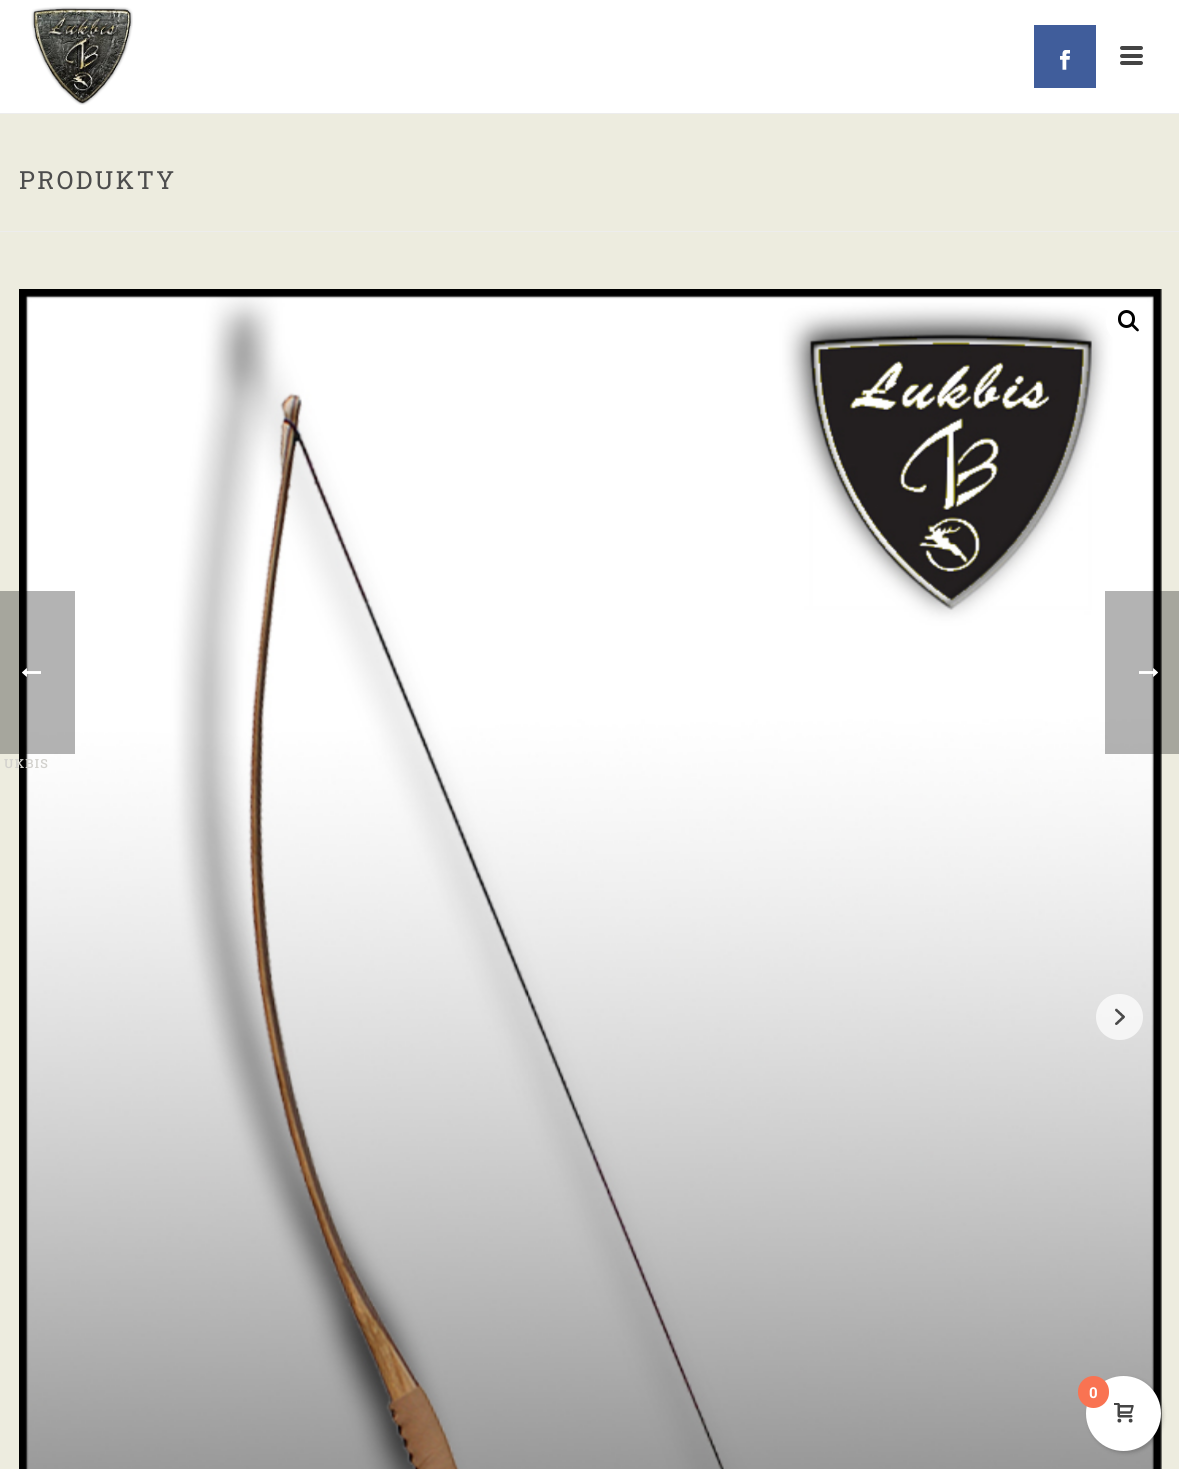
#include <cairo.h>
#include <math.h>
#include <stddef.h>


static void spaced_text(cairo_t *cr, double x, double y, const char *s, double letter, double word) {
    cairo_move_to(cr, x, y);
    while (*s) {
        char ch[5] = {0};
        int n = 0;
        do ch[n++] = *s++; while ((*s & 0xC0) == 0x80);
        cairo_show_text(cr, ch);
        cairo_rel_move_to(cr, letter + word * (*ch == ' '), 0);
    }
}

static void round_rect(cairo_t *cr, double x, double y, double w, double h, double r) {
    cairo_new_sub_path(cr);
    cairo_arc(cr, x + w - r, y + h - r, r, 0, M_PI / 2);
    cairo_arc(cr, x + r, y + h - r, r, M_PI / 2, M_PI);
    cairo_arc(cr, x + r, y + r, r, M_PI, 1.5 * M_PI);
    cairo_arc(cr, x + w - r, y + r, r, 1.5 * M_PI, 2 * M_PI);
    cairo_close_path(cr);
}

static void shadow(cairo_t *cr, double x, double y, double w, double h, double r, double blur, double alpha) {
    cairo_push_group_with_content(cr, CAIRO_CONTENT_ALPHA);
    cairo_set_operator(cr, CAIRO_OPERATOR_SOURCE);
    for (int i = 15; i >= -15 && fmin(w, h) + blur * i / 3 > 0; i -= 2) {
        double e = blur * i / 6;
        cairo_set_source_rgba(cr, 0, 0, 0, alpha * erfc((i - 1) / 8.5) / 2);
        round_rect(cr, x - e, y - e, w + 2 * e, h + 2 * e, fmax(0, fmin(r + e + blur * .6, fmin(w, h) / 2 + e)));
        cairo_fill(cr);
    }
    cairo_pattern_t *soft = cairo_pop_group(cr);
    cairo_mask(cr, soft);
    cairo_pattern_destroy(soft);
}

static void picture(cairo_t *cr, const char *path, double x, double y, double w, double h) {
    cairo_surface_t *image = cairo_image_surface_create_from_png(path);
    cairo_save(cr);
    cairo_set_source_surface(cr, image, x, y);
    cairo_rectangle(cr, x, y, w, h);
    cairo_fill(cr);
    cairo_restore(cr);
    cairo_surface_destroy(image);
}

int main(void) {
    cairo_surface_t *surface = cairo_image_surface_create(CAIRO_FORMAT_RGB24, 1179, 1469);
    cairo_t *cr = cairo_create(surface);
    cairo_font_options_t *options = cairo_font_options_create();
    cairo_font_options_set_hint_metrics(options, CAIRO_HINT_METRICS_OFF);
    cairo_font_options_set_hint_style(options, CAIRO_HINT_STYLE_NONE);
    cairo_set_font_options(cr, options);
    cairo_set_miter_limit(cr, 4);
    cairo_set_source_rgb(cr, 0.929, 0.922, 0.875);
    cairo_paint(cr);
    cairo_set_source_rgb(cr, 0.929, 0.929, 0.929);
    cairo_rectangle(cr, 0, 231, 1179, 1);
    cairo_fill(cr);
    cairo_rectangle(cr, 0, 113, 1179, 1);
    cairo_fill(cr);
    cairo_set_source_rgb(cr, 1, 1, 1);
    cairo_rectangle(cr, 0, 0, 1179, 113);
    cairo_fill(cr);
    picture(cr, "img1.png", 31, 6, 102, 99);
    cairo_set_source_rgb(cr, 0.267, 0.267, 0.267);
    round_rect(cr, 1120, 46, 23, 4, 2);
    cairo_fill(cr);
    round_rect(cr, 1120, 54, 23, 4, 2);
    cairo_fill(cr);
    round_rect(cr, 1120, 61, 23, 4, 2);
    cairo_fill(cr);
    cairo_set_source_rgb(cr, 0.251, 0.365, 0.608);
    cairo_rectangle(cr, 1034, 25, 62, 63);
    cairo_fill(cr);
    picture(cr, "img2.png", 1060, 50, 10, 20);
    cairo_select_font_face(cr, "Roboto Slab", CAIRO_FONT_SLANT_NORMAL, CAIRO_FONT_WEIGHT_NORMAL);
    cairo_set_font_size(cr, 25);
    cairo_set_source_rgb(cr, 0.302, 0.302, 0.302);
    spaced_text(cr, 19, 189, "PRODUKTY", 2.5, 0);
    picture(cr, "img3.png", 19, 289, 1143, 1180);
    cairo_set_source_rgb(cr, 1, 1, 1);
    cairo_arc(cr, 1128.5, 321.5, 22.5, 0, 2 * M_PI);
    cairo_fill(cr);
    round_rect(cr, 1119.5, 311.5, 14, 15, 7);
    cairo_set_source_rgb(cr, 0, 0, 0);
    cairo_set_line_width(cr, 3);
    cairo_stroke(cr);
    cairo_new_path(cr);
    cairo_move_to(cr, 1131.5, 324);
    cairo_curve_to(cr, 1133, 322.5, 1135, 326, 1136, 326.5);
    cairo_curve_to(cr, 1136.5, 327.5, 1140, 329.5, 1138.5, 331);
    cairo_curve_to(cr, 1137, 332.5, 1135, 329, 1134, 328.5);
    cairo_curve_to(cr, 1133.5, 327.5, 1130, 325.5, 1131.5, 324);
    cairo_close_path(cr);
    cairo_fill(cr);
    cairo_set_source_rgba(cr, 1, 1, 1, 0.7);
    round_rect(cr, 1096, 994, 47, 46, 23);
    cairo_fill(cr);
    picture(cr, "img4.png", 1115, 1008, 10, 17);
    cairo_set_source_rgba(cr, 0, 0, 0, 0.3);
    cairo_rectangle(cr, 1105, 591, 74, 163);
    cairo_fill(cr);
    picture(cr, "img5.png", 1139, 668, 19, 9);
    cairo_rectangle(cr, 0, 591, 75, 163);
    cairo_fill(cr);
    picture(cr, "img6.png", 22, 668, 19, 9);
    cairo_select_font_face(cr, "Roboto Slab Medium", CAIRO_FONT_SLANT_NORMAL, CAIRO_FONT_WEIGHT_NORMAL);
    cairo_set_font_size(cr, 12.5);
    cairo_set_source_rgb(cr, 0.824, 0.82, 0.804);
    spaced_text(cr, 4, 768, "UKBIS", 1.25, 0);
    cairo_set_source_rgb(cr, 0, 0, 0);
    shadow(cr, 1088, 1378, 75, 75, 37.5, 2, 0.2);
    cairo_set_source_rgb(cr, 1, 1, 1);
    cairo_arc(cr, 1123.5, 1413.5, 37.5, 0, 2 * M_PI);
    cairo_fill(cr);
    cairo_set_source_rgb(cr, 0.976, 0.451, 0.322);
    round_rect(cr, 1078, 1376, 31, 32, 15.5);
    cairo_fill(cr);
    cairo_select_font_face(cr, "Roboto Slab", CAIRO_FONT_SLANT_NORMAL, CAIRO_FONT_WEIGHT_BOLD);
    cairo_set_font_size(cr, 15);
    cairo_set_source_rgb(cr, 1, 1, 1);
    cairo_move_to(cr, 1089, 1398);
    cairo_show_text(cr, "0");
    picture(cr, "img7.png", 1114, 1403, 20, 20);
    cairo_surface_write_to_png(surface, "page.png");
    cairo_font_options_destroy(options);
    cairo_destroy(cr);
    cairo_surface_destroy(surface);
    return 0;
}
